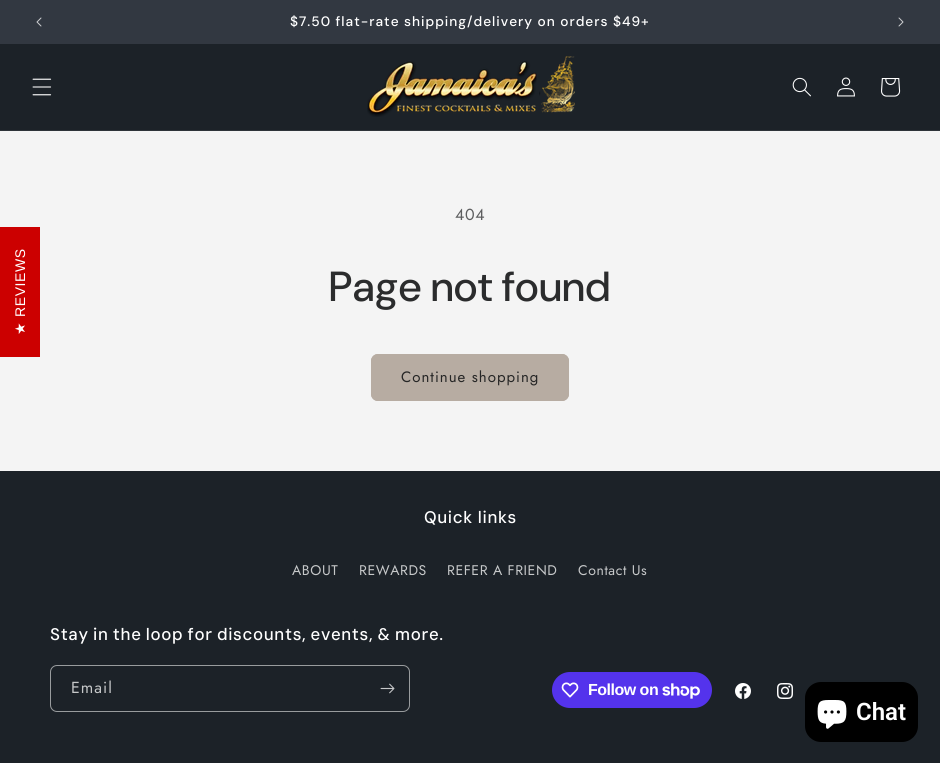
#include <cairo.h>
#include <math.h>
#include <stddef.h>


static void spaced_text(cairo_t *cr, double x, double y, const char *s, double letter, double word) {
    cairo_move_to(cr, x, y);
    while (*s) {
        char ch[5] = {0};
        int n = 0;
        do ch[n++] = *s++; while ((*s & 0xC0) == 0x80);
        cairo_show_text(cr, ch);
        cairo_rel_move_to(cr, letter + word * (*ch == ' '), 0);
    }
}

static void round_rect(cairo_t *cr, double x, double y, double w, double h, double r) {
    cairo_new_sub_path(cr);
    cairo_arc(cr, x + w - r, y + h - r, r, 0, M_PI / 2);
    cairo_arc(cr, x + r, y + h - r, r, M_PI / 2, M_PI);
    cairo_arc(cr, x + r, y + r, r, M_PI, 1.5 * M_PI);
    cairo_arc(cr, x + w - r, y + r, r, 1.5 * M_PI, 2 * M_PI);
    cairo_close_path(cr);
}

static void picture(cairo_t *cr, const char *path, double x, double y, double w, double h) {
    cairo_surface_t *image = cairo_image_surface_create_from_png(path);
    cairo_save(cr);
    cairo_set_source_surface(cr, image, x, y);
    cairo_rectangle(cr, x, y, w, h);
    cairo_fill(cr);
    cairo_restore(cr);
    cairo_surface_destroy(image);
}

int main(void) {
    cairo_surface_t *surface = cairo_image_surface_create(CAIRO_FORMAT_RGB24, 940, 763);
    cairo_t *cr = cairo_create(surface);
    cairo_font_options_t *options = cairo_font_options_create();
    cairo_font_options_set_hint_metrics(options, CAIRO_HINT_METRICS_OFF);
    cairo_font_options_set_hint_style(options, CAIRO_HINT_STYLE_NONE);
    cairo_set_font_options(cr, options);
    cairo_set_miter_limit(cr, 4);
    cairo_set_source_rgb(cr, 0.957, 0.957, 0.957);
    cairo_paint(cr);
    cairo_set_source_rgb(cr, 0.196, 0.22, 0.255);
    cairo_rectangle(cr, 0, 0, 940, 44);
    cairo_fill(cr);
    picture(cr, "img1.png", 36, 17, 6, 10);
    cairo_select_font_face(cr, "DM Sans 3 Medium", CAIRO_FONT_SLANT_NORMAL, CAIRO_FONT_WEIGHT_NORMAL);
    cairo_set_font_size(cr, 13.65);
    cairo_set_source_rgb(cr, 1, 1, 1);
    spaced_text(cr, 290, 26, "$7.50 flat-rate shipping/delivery on orders $49+", 1, 0);
    picture(cr, "img2.png", 898, 17, 6, 10);
    cairo_set_source_rgb(cr, 0.11, 0.133, 0.157);
    cairo_rectangle(cr, 0, 44, 940, 86);
    cairo_fill(cr);
    cairo_set_source_rgb(cr, 0.18, 0.204, 0.224);
    cairo_rectangle(cr, 0, 130, 940, 1);
    cairo_fill(cr);
    picture(cr, "img3.png", 32, 78, 20, 18);
    picture(cr, "img4.png", 367, 56, 208, 61);
    picture(cr, "img5.png", 792, 77, 19, 20);
    picture(cr, "img6.png", 837, 77, 18, 20);
    picture(cr, "img7.png", 881, 78, 20, 19);
    cairo_set_source_rgb(cr, 0.8, 0, 0);
    cairo_rectangle(cr, 0, 227, 40, 130);
    cairo_fill(cr);
    cairo_select_font_face(cr, "Liberation Sans", CAIRO_FONT_SLANT_NORMAL, CAIRO_FONT_WEIGHT_NORMAL);
    cairo_set_font_size(cr, 14);
    cairo_set_source_rgb(cr, 1, 1, 1);
    cairo_save(cr);
    cairo_translate(cr, 25, 317);
    cairo_rotate(cr, -90 * M_PI / 180);
    spaced_text(cr, 0, 0, "REVIEWS", 0.6, 0);
    cairo_restore(cr);
    cairo_select_font_face(cr, "DejaVu Sans", CAIRO_FONT_SLANT_NORMAL, CAIRO_FONT_WEIGHT_NORMAL);
    cairo_save(cr);
    cairo_translate(cr, 25, 335);
    cairo_rotate(cr, -90 * M_PI / 180);
    spaced_text(cr, 0, 0, "★", 0.6, 0);
    cairo_restore(cr);
    cairo_select_font_face(cr, "Jost", CAIRO_FONT_SLANT_NORMAL, CAIRO_FONT_WEIGHT_NORMAL);
    cairo_set_font_size(cr, 16);
    cairo_set_source_rgb(cr, 0.365, 0.369, 0.373);
    spaced_text(cr, 455, 220, "404", 0.6, 0);
    cairo_select_font_face(cr, "DM Sans Medium", CAIRO_FONT_SLANT_NORMAL, CAIRO_FONT_WEIGHT_NORMAL);
    cairo_set_font_size(cr, 42);
    cairo_set_source_rgb(cr, 0.169, 0.173, 0.176);
    spaced_text(cr, 329, 301, "Page not found", 0.65, 0);
    cairo_set_source_rgb(cr, 0.718, 0.675, 0.635);
    round_rect(cr, 371, 354, 198, 47, 7);
    cairo_fill(cr);
    round_rect(cr, 371.5, 354.5, 197, 46, 6.5);
    cairo_set_line_width(cr, 1);
    cairo_stroke(cr);
    cairo_select_font_face(cr, "Jost", CAIRO_FONT_SLANT_NORMAL, CAIRO_FONT_WEIGHT_NORMAL);
    cairo_set_font_size(cr, 15);
    cairo_set_source_rgb(cr, 0.149, 0.149, 0.149);
    spaced_text(cr, 401, 382, "Continue shopping", 1, 0);
    cairo_set_source_rgb(cr, 0.11, 0.133, 0.157);
    cairo_rectangle(cr, 0, 471, 940, 292);
    cairo_fill(cr);
    cairo_select_font_face(cr, "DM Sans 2 Medium", CAIRO_FONT_SLANT_NORMAL, CAIRO_FONT_WEIGHT_NORMAL);
    cairo_set_font_size(cr, 16.8);
    cairo_set_source_rgb(cr, 1, 1, 1);
    spaced_text(cr, 424, 523, "Quick links", 0.65, 0);
    cairo_select_font_face(cr, "Jost", CAIRO_FONT_SLANT_NORMAL, CAIRO_FONT_WEIGHT_NORMAL);
    cairo_set_font_size(cr, 14);
    cairo_set_source_rgb(cr, 0.776, 0.784, 0.788);
    spaced_text(cr, 292, 575, "ABOUT", 0.6, 0);
    spaced_text(cr, 359, 575, "REWARDS", 0.6, 0);
    spaced_text(cr, 447, 575, "REFER A FRIEND", 0.6, 0);
    spaced_text(cr, 578, 575, "Contact Us", 0.6, 0);
    cairo_select_font_face(cr, "DM Sans 2 Medium", CAIRO_FONT_SLANT_NORMAL, CAIRO_FONT_WEIGHT_NORMAL);
    cairo_set_font_size(cr, 16.8);
    cairo_set_source_rgb(cr, 1, 1, 1);
    spaced_text(cr, 50, 640, "Stay in the loop for discounts, events, & more.", 0.65, -0.75);
    round_rect(cr, 50.5, 665.5, 359, 46, 6.5);
    cairo_set_source_rgb(cr, 0.6, 0.612, 0.62);
    cairo_stroke(cr);
    cairo_select_font_face(cr, "Jost", CAIRO_FONT_SLANT_NORMAL, CAIRO_FONT_WEIGHT_NORMAL);
    cairo_set_font_size(cr, 16);
    cairo_set_source_rgb(cr, 0.776, 0.784, 0.788);
    spaced_text(cr, 71, 693, "Email", 1, 0);
    picture(cr, "img8.png", 380, 683, 15, 11);
    cairo_set_source_rgb(cr, 0.329, 0.2, 0.922);
    round_rect(cr, 552, 672, 160, 36, 18);
    cairo_fill(cr);
    picture(cr, "img9.png", 561, 682, 18, 16);
    cairo_select_font_face(cr, "Liberation Sans", CAIRO_FONT_SLANT_NORMAL, CAIRO_FONT_WEIGHT_BOLD);
    cairo_set_source_rgb(cr, 1, 1, 1);
    spaced_text(cr, 588, 695, "Follow on", -0.5, 0);
    picture(cr, "img10.png", 662, 683, 38, 16);
    picture(cr, "img11.png", 735, 683, 16, 16);
    picture(cr, "img12.png", 777, 683, 16, 16);
    cairo_set_source_rgb(cr, 0, 0, 0);
    round_rect(cr, 805, 682, 113, 60, 16);
    cairo_fill(cr);
    picture(cr, "img13.png", 817, 700, 30, 29);
    cairo_select_font_face(cr, "Roboto SemiBold", CAIRO_FONT_SLANT_NORMAL, CAIRO_FONT_WEIGHT_NORMAL);
    cairo_set_font_size(cr, 24);
    cairo_set_source_rgb(cr, 1, 1, 1);
    cairo_move_to(cr, 856, 720);
    cairo_show_text(cr, "Chat");
    cairo_surface_write_to_png(surface, "page.png");
    cairo_font_options_destroy(options);
    cairo_destroy(cr);
    cairo_surface_destroy(surface);
    return 0;
}
